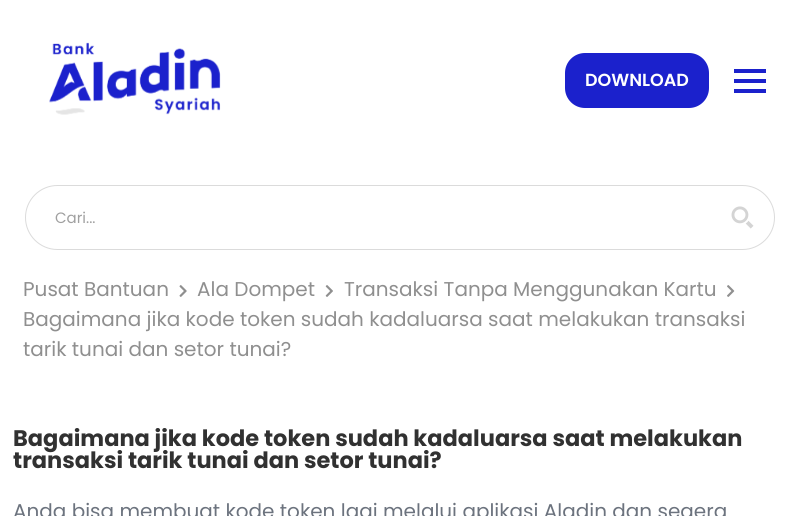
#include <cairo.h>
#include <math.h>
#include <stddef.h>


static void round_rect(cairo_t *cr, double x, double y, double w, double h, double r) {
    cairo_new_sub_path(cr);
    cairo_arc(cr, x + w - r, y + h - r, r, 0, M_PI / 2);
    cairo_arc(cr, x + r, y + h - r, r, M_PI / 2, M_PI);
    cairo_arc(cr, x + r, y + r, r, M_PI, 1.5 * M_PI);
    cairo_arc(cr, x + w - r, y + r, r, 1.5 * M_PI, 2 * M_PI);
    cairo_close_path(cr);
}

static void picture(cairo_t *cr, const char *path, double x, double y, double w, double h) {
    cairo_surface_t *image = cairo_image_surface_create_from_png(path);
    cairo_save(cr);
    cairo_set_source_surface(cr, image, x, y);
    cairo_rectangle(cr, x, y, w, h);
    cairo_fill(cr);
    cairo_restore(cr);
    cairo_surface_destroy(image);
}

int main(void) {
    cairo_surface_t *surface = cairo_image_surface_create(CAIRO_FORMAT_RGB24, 800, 516);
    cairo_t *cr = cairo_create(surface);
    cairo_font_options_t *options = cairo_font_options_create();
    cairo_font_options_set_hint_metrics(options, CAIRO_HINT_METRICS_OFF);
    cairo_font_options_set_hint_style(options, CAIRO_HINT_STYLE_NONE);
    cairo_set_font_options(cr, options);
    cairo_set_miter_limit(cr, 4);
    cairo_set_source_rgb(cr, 1, 1, 1);
    cairo_paint(cr);
    picture(cr, "img1.png", 49, 42, 172, 73);
    cairo_set_source_rgb(cr, 0.106, 0.129, 0.8);
    round_rect(cr, 565, 53, 144, 55, 20);
    cairo_fill(cr);
    cairo_select_font_face(cr, "Poppins SemiBold", CAIRO_FONT_SLANT_NORMAL, CAIRO_FONT_WEIGHT_NORMAL);
    cairo_set_font_size(cr, 17.5);
    cairo_set_source_rgb(cr, 1, 1, 1);
    cairo_move_to(cr, 585, 86);
    cairo_show_text(cr, "DOWNLOAD");
    cairo_set_source_rgb(cr, 0.106, 0.129, 0.8);
    cairo_rectangle(cr, 734, 79, 32, 4);
    cairo_fill(cr);
    cairo_rectangle(cr, 734, 69, 32, 4);
    cairo_fill(cr);
    cairo_rectangle(cr, 734, 89, 32, 4);
    cairo_fill(cr);
    round_rect(cr, 25.5, 185.5, 749, 64, 32);
    cairo_set_source_rgb(cr, 0.859, 0.859, 0.859);
    cairo_set_line_width(cr, 1);
    cairo_stroke(cr);
    cairo_select_font_face(cr, "Poppins", CAIRO_FONT_SLANT_NORMAL, CAIRO_FONT_WEIGHT_NORMAL);
    cairo_set_font_size(cr, 15);
    cairo_set_source_rgb(cr, 0.627, 0.627, 0.627);
    cairo_move_to(cr, 55, 223);
    cairo_show_text(cr, "Cari...");
    picture(cr, "img2.png", 731, 206, 23, 23);
    cairo_set_font_size(cr, 20);
    cairo_set_source_rgb(cr, 0.561, 0.561, 0.561);
    cairo_move_to(cr, 23, 296);
    cairo_show_text(cr, "Pusat Bantuan");
    picture(cr, "img3.png", 179, 285, 8, 12);
    cairo_move_to(cr, 197, 296);
    cairo_show_text(cr, "Ala Dompet");
    picture(cr, "img4.png", 325, 285, 8, 12);
    cairo_move_to(cr, 344, 296);
    cairo_show_text(cr, "Transaksi Tanpa Menggunakan Kartu");
    picture(cr, "img5.png", 727, 285, 8, 12);
    cairo_move_to(cr, 23, 326);
    cairo_show_text(cr, "Bagaimana jika kode token sudah kadaluarsa saat melakukan transaksi");
    cairo_move_to(cr, 23, 356);
    cairo_show_text(cr, "tarik tunai dan setor tunai?");
    cairo_select_font_face(cr, "Poppins", CAIRO_FONT_SLANT_NORMAL, CAIRO_FONT_WEIGHT_BOLD);
    cairo_set_font_size(cr, 22.5);
    cairo_set_source_rgb(cr, 0.192, 0.192, 0.192);
    cairo_move_to(cr, 13, 446);
    cairo_show_text(cr, "Bagaimana jika kode token sudah kadaluarsa saat melakukan");
    cairo_move_to(cr, 13, 468);
    cairo_show_text(cr, "transaksi tarik tunai dan setor tunai?");
    cairo_select_font_face(cr, "Poppins", CAIRO_FONT_SLANT_NORMAL, CAIRO_FONT_WEIGHT_NORMAL);
    cairo_set_font_size(cr, 20);
    cairo_set_source_rgb(cr, 0.424, 0.451, 0.494);
    cairo_move_to(cr, 13, 518);
    cairo_show_text(cr, "Anda bisa membuat kode token lagi melalui aplikasi Aladin dan segera");
    cairo_surface_write_to_png(surface, "page.png");
    cairo_font_options_destroy(options);
    cairo_destroy(cr);
    cairo_surface_destroy(surface);
    return 0;
}
